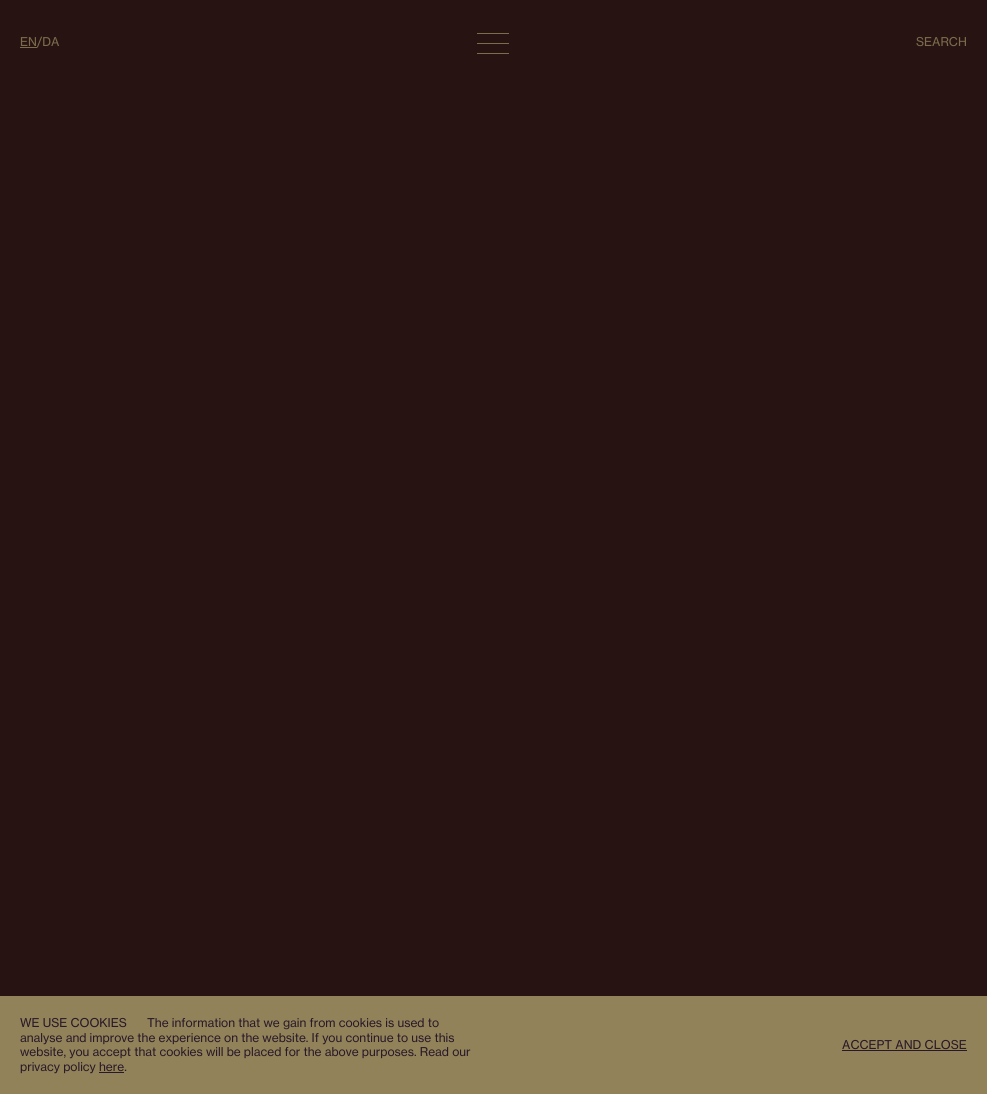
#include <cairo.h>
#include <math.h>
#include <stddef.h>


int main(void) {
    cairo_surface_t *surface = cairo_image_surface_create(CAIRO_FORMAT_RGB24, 987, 1094);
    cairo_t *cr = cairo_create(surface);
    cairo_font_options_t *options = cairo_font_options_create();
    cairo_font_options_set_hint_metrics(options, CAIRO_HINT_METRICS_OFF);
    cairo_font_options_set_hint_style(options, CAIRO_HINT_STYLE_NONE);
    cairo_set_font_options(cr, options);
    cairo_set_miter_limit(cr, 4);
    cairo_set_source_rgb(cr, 0.157, 0.078, 0.078);
    cairo_paint(cr);
    cairo_set_source_rgb(cr, 0.486, 0.424, 0.298);
    cairo_rectangle(cr, 20, 47, 17, 1);
    cairo_fill(cr);
    cairo_select_font_face(cr, "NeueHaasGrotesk", CAIRO_FONT_SLANT_NORMAL, CAIRO_FONT_WEIGHT_NORMAL);
    cairo_set_font_size(cr, 12);
    cairo_move_to(cr, 20, 46);
    cairo_show_text(cr, "EN/DA");
    cairo_rectangle(cr, 477, 33, 32, 1);
    cairo_fill(cr);
    cairo_rectangle(cr, 477, 43, 32, 1);
    cairo_fill(cr);
    cairo_rectangle(cr, 477, 53, 32, 1);
    cairo_fill(cr);
    cairo_move_to(cr, 916, 46);
    cairo_show_text(cr, "SEARCH");
    cairo_set_source_rgb(cr, 0.569, 0.51, 0.353);
    cairo_rectangle(cr, 0, 996, 987, 98);
    cairo_fill(cr);
    cairo_set_source_rgb(cr, 0.157, 0.098, 0.157);
    cairo_move_to(cr, 20, 1027);
    cairo_show_text(cr, "WE USE COOKIES");
    cairo_move_to(cr, 147, 1027);
    cairo_show_text(cr, "The information that we gain from cookies is used to");
    cairo_move_to(cr, 20, 1042);
    cairo_show_text(cr, "analyse and improve the experience on the website. If you continue to use this");
    cairo_move_to(cr, 20, 1056);
    cairo_show_text(cr, "website, you accept that cookies will be placed for the above purposes. Read our");
    cairo_move_to(cr, 20, 1071);
    cairo_show_text(cr, "privacy policy here.");
    cairo_rectangle(cr, 99, 1072, 25, 1);
    cairo_fill(cr);
    cairo_move_to(cr, 842, 1049);
    cairo_show_text(cr, "ACCEPT AND CLOSE");
    cairo_rectangle(cr, 842, 1050, 125, 1);
    cairo_fill(cr);
    cairo_surface_write_to_png(surface, "page.png");
    cairo_font_options_destroy(options);
    cairo_destroy(cr);
    cairo_surface_destroy(surface);
    return 0;
}
